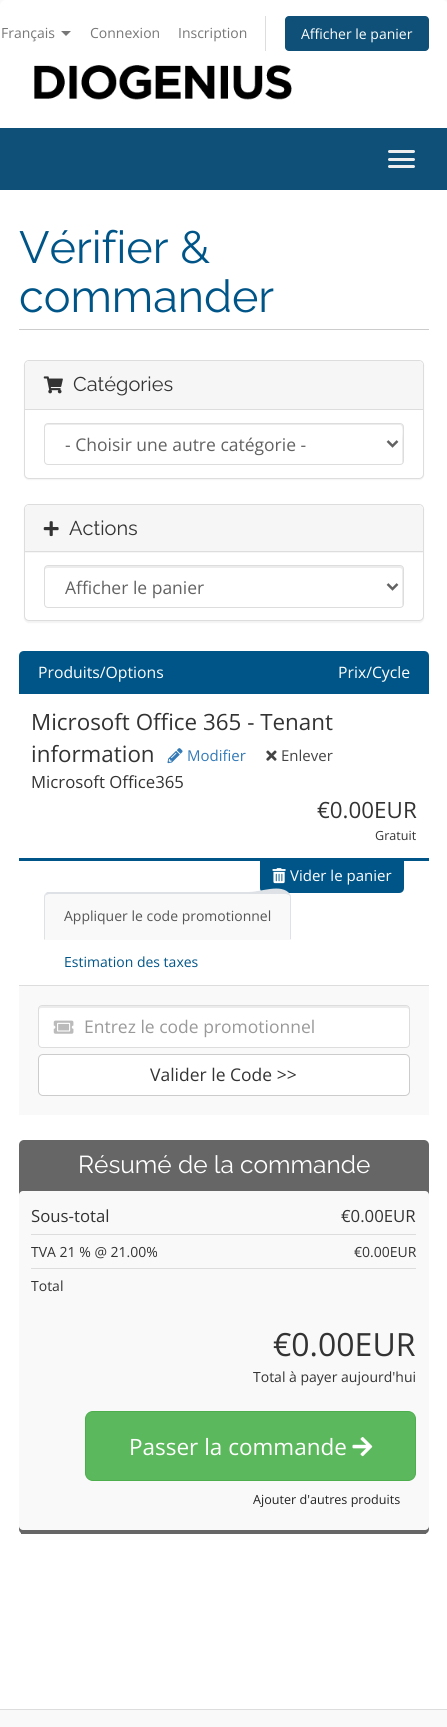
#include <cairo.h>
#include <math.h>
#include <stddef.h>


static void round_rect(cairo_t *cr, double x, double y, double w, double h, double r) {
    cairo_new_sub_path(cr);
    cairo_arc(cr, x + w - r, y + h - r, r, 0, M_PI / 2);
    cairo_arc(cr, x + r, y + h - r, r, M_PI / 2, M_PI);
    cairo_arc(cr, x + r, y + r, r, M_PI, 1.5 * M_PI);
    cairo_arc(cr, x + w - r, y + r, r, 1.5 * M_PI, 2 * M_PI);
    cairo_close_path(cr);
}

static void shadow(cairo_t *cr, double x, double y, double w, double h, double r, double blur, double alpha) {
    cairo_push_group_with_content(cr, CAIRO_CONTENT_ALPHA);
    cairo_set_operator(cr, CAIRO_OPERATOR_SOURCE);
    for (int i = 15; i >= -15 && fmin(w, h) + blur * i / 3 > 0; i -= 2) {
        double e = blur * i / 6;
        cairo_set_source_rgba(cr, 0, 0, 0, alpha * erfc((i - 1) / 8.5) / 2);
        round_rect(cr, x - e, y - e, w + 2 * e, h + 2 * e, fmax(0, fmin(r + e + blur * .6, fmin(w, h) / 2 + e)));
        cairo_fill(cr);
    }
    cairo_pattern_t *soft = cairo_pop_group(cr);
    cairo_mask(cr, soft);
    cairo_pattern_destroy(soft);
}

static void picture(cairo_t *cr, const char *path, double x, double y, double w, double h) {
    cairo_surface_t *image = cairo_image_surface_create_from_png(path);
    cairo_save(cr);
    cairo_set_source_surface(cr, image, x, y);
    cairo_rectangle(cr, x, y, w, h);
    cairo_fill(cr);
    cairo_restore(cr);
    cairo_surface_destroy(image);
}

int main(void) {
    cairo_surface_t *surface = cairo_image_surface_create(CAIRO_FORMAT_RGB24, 447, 1727);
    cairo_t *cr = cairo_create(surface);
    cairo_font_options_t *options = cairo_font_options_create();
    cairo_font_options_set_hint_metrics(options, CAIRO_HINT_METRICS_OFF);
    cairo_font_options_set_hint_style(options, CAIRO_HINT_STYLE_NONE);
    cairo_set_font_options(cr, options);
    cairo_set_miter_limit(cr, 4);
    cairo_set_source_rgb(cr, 0.973, 0.973, 0.973);
    cairo_paint(cr);
    cairo_set_source_rgb(cr, 1, 1, 1);
    cairo_new_path(cr);
    cairo_move_to(cr, 6, 0);
    cairo_line_to(cr, 442, 0);
    cairo_curve_to(cr, 445.5, 0, 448, 2.5, 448, 6);
    cairo_line_to(cr, 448, 128);
    cairo_line_to(cr, 0, 128);
    cairo_line_to(cr, 0, 6);
    cairo_curve_to(cr, 0, 2.5, 2.5, 0, 6, 0);
    cairo_close_path(cr);
    cairo_fill(cr);
    cairo_select_font_face(cr, "Open Sans", CAIRO_FONT_SLANT_NORMAL, CAIRO_FONT_WEIGHT_NORMAL);
    cairo_set_font_size(cr, 14);
    cairo_set_source_rgb(cr, 0.467, 0.467, 0.467);
    cairo_move_to(cr, 1, 38);
    cairo_show_text(cr, "Français");
    cairo_new_path(cr);
    cairo_move_to(cr, 61, 31);
    cairo_line_to(cr, 71, 31);
    cairo_line_to(cr, 66, 36);
    cairo_close_path(cr);
    cairo_fill(cr);
    cairo_move_to(cr, 90, 38);
    cairo_show_text(cr, "Connexion");
    cairo_move_to(cr, 178, 38);
    cairo_show_text(cr, "Inscription");
    cairo_set_source_rgb(cr, 0.867, 0.867, 0.867);
    cairo_rectangle(cr, 265, 16, 1, 35);
    cairo_fill(cr);
    cairo_set_source_rgb(cr, 0.055, 0.314, 0.467);
    round_rect(cr, 285, 16, 144, 35, 4);
    cairo_fill(cr);
    cairo_set_source_rgb(cr, 1, 1, 1);
    cairo_move_to(cr, 301, 39);
    cairo_show_text(cr, "Afficher le panier");
    picture(cr, "img1.png", 34, 65, 258, 35);
    cairo_set_source_rgb(cr, 0.055, 0.314, 0.467);
    cairo_rectangle(cr, 0, 128, 447, 62);
    cairo_fill(cr);
    cairo_set_source_rgb(cr, 0.933, 0.933, 0.933);
    round_rect(cr, 388, 150, 27, 3, 1.5);
    cairo_fill(cr);
    round_rect(cr, 388, 158, 27, 3, 1.5);
    cairo_fill(cr);
    round_rect(cr, 388, 165, 27, 3, 1.5);
    cairo_fill(cr);
    cairo_set_source_rgb(cr, 1, 1, 1);
    cairo_rectangle(cr, 0, 190, 447, 1519);
    cairo_fill(cr);
    cairo_set_source_rgb(cr, 0.8, 0.8, 0.8);
    cairo_rectangle(cr, 19, 329, 410, 1);
    cairo_fill(cr);
    cairo_select_font_face(cr, "Raleway", CAIRO_FONT_SLANT_NORMAL, CAIRO_FONT_WEIGHT_NORMAL);
    cairo_set_font_size(cr, 45);
    cairo_set_source_rgb(cr, 0, 0.333, 0.533);
    cairo_move_to(cr, 19, 263);
    cairo_show_text(cr, "Vérifier &");
    cairo_move_to(cr, 19, 312);
    cairo_show_text(cr, "commander");
    cairo_set_source_rgb(cr, 0, 0, 0);
    shadow(cr, 24, 361, 400, 119, 5, 0.5, 0.05);
    cairo_set_source_rgb(cr, 1, 1, 1);
    round_rect(cr, 24.5, 360.5, 399, 118, 4.5);
    cairo_fill_preserve(cr);
    cairo_set_source_rgb(cr, 0.867, 0.867, 0.867);
    cairo_set_line_width(cr, 1);
    cairo_stroke(cr);
    cairo_set_source_rgb(cr, 0.961, 0.961, 0.961);
    cairo_new_path(cr);
    cairo_move_to(cr, 29, 361);
    cairo_line_to(cr, 419, 361);
    cairo_curve_to(cr, 421, 361, 423, 363, 423, 365);
    cairo_line_to(cr, 423, 410);
    cairo_line_to(cr, 25, 410);
    cairo_line_to(cr, 25, 365);
    cairo_curve_to(cr, 25, 363, 27, 361, 29, 361);
    cairo_close_path(cr);
    cairo_fill(cr);
    cairo_set_source_rgb(cr, 0.867, 0.867, 0.867);
    cairo_rectangle(cr, 25, 409, 398, 1);
    cairo_fill(cr);
    picture(cr, "img2.png", 43, 376, 20, 18);
    cairo_set_font_size(cr, 20);
    cairo_set_source_rgb(cr, 0.2, 0.2, 0.2);
    cairo_move_to(cr, 73, 391);
    cairo_show_text(cr, "Catégories");
    cairo_set_source_rgb(cr, 0.925, 0.925, 0.925);
    cairo_new_path(cr);
    cairo_move_to(cr, 48, 425);
    cairo_line_to(cr, 400, 425);
    cairo_curve_to(cr, 404, 425, 402, 438, 402, 439);
    cairo_line_to(cr, 402, 464);
    cairo_curve_to(cr, 402, 463, 403, 462, 403, 462);
    cairo_line_to(cr, 403, 426);
    cairo_curve_to(cr, 403, 425, 402, 424, 400, 424);
    cairo_line_to(cr, 48, 424);
    cairo_curve_to(cr, 46, 424, 45, 425, 45, 426);
    cairo_line_to(cr, 45, 428);
    cairo_curve_to(cr, 45, 426, 46, 425, 48, 425);
    cairo_close_path(cr);
    cairo_fill(cr);
    round_rect(cr, 44.5, 423.5, 359, 41, 3.5);
    cairo_set_source_rgb(cr, 0.867, 0.867, 0.867);
    cairo_stroke(cr);
    cairo_new_path(cr);
    cairo_move_to(cr, 387.5, 441);
    cairo_line_to(cr, 392.5, 446);
    cairo_line_to(cr, 397.5, 441);
    cairo_set_source_rgb(cr, 0.384, 0.384, 0.384);
    cairo_set_line_width(cr, 2.5);
    cairo_stroke(cr);
    cairo_select_font_face(cr, "Open Sans", CAIRO_FONT_SLANT_NORMAL, CAIRO_FONT_WEIGHT_NORMAL);
    cairo_set_font_size(cr, 17.5);
    cairo_move_to(cr, 65, 451);
    cairo_show_text(cr, "- Choisir une autre catégorie -");
    cairo_set_source_rgb(cr, 0, 0, 0);
    shadow(cr, 24, 505, 400, 118, 5, 0.5, 0.05);
    cairo_set_source_rgb(cr, 1, 1, 1);
    round_rect(cr, 24.5, 504.5, 399, 116, 4.5);
    cairo_fill_preserve(cr);
    cairo_set_source_rgb(cr, 0.867, 0.867, 0.867);
    cairo_set_line_width(cr, 1);
    cairo_stroke(cr);
    cairo_set_source_rgb(cr, 0.961, 0.961, 0.961);
    cairo_new_path(cr);
    cairo_move_to(cr, 29, 505);
    cairo_line_to(cr, 419, 505);
    cairo_curve_to(cr, 421, 505, 423, 507, 423, 509);
    cairo_line_to(cr, 423, 553);
    cairo_line_to(cr, 25, 553);
    cairo_line_to(cr, 25, 509);
    cairo_curve_to(cr, 25, 507, 27, 505, 29, 505);
    cairo_close_path(cr);
    cairo_fill(cr);
    cairo_set_source_rgb(cr, 0.867, 0.867, 0.867);
    cairo_rectangle(cr, 25, 551, 398, 1);
    cairo_fill(cr);
    picture(cr, "img3.png", 43, 521, 16, 16);
    cairo_select_font_face(cr, "Raleway", CAIRO_FONT_SLANT_NORMAL, CAIRO_FONT_WEIGHT_NORMAL);
    cairo_set_font_size(cr, 20);
    cairo_set_source_rgb(cr, 0.2, 0.2, 0.2);
    cairo_move_to(cr, 69, 535);
    cairo_show_text(cr, "Actions");
    cairo_set_source_rgb(cr, 0.925, 0.925, 0.925);
    cairo_new_path(cr);
    cairo_move_to(cr, 48, 568);
    cairo_line_to(cr, 400, 568);
    cairo_curve_to(cr, 401, 568, 402, 569, 402, 570);
    cairo_line_to(cr, 402, 606);
    cairo_curve_to(cr, 403, 605, 403, 604, 403, 604);
    cairo_line_to(cr, 403, 568);
    cairo_curve_to(cr, 403, 567, 402, 566, 400, 566);
    cairo_line_to(cr, 48, 566);
    cairo_curve_to(cr, 46, 566, 45, 567, 45, 568);
    cairo_line_to(cr, 45, 570);
    cairo_curve_to(cr, 45, 569, 46, 568, 48, 568);
    cairo_close_path(cr);
    cairo_fill(cr);
    round_rect(cr, 44.5, 565.5, 359, 42, 3.5);
    cairo_set_source_rgb(cr, 0.867, 0.867, 0.867);
    cairo_stroke(cr);
    cairo_new_path(cr);
    cairo_move_to(cr, 387.5, 584);
    cairo_line_to(cr, 392.5, 589);
    cairo_line_to(cr, 397.5, 584);
    cairo_set_source_rgb(cr, 0.384, 0.384, 0.384);
    cairo_set_line_width(cr, 2.5);
    cairo_stroke(cr);
    cairo_select_font_face(cr, "Open Sans", CAIRO_FONT_SLANT_NORMAL, CAIRO_FONT_WEIGHT_NORMAL);
    cairo_set_font_size(cr, 17.5);
    cairo_move_to(cr, 65, 594);
    cairo_show_text(cr, "Afficher le panier");
    cairo_set_source_rgb(cr, 0, 0.333, 0.533);
    cairo_new_path(cr);
    cairo_move_to(cr, 24, 651);
    cairo_line_to(cr, 424, 651);
    cairo_curve_to(cr, 427, 651, 429, 653, 429, 656);
    cairo_line_to(cr, 429, 694);
    cairo_line_to(cr, 19, 694);
    cairo_line_to(cr, 19, 656);
    cairo_curve_to(cr, 19, 653, 21, 651, 24, 651);
    cairo_close_path(cr);
    cairo_fill(cr);
    cairo_set_font_size(cr, 15.75);
    cairo_set_source_rgb(cr, 1, 1, 1);
    cairo_move_to(cr, 38, 678);
    cairo_show_text(cr, "Produits/Options");
    cairo_move_to(cr, 338, 678);
    cairo_show_text(cr, "Prix/Cycle");
    cairo_set_source_rgb(cr, 0, 0.333, 0.533);
    cairo_rectangle(cr, 19, 858, 410, 3);
    cairo_fill(cr);
    cairo_set_font_size(cr, 22.4);
    cairo_set_source_rgb(cr, 0.2, 0.2, 0.2);
    cairo_move_to(cr, 31, 730);
    cairo_show_text(cr, "Microsoft Office 365 - Tenant");
    cairo_move_to(cr, 31, 762);
    cairo_show_text(cr, "information");
    picture(cr, "img4.png", 167, 748, 16, 16);
    cairo_set_font_size(cr, 15);
    cairo_set_source_rgb(cr, 0.2, 0.478, 0.718);
    cairo_move_to(cr, 187, 761);
    cairo_show_text(cr, "Modifier");
    picture(cr, "img5.png", 266, 750, 11, 11);
    cairo_set_source_rgb(cr, 0.267, 0.267, 0.267);
    cairo_move_to(cr, 281, 761);
    cairo_show_text(cr, "Enlever");
    cairo_set_font_size(cr, 16.75);
    cairo_set_source_rgb(cr, 0.2, 0.2, 0.2);
    cairo_move_to(cr, 31, 788);
    cairo_show_text(cr, "Microsoft Office365");
    cairo_set_font_size(cr, 22.4);
    cairo_move_to(cr, 317, 818);
    cairo_show_text(cr, "€0.00EUR");
    cairo_set_font_size(cr, 12.6);
    cairo_move_to(cr, 375, 840);
    cairo_show_text(cr, "Gratuit");
    cairo_set_source_rgb(cr, 0, 0.333, 0.533);
    cairo_new_path(cr);
    cairo_move_to(cr, 260, 860);
    cairo_line_to(cr, 404, 860);
    cairo_line_to(cr, 404, 888);
    cairo_curve_to(cr, 404, 891, 402, 893, 399, 893);
    cairo_line_to(cr, 265, 893);
    cairo_curve_to(cr, 262, 893, 260, 891, 260, 888);
    cairo_close_path(cr);
    cairo_fill(cr);
    picture(cr, "img6.png", 272, 868, 14, 16);
    cairo_set_font_size(cr, 15);
    cairo_set_source_rgb(cr, 1, 1, 1);
    cairo_move_to(cr, 290, 881);
    cairo_show_text(cr, "Vider le panier");
    cairo_set_source_rgb(cr, 0.867, 0.867, 0.867);
    cairo_rectangle(cr, 19, 985, 410, 1);
    cairo_fill(cr);
    cairo_set_source_rgb(cr, 0.973, 0.973, 0.973);
    cairo_new_path(cr);
    cairo_move_to(cr, 49, 893);
    cairo_line_to(cr, 286, 893);
    cairo_curve_to(cr, 289, 893, 291, 895, 291, 898);
    cairo_line_to(cr, 291, 940);
    cairo_line_to(cr, 44, 940);
    cairo_line_to(cr, 44, 898);
    cairo_curve_to(cr, 44, 895, 46, 893, 49, 893);
    cairo_close_path(cr);
    cairo_fill(cr);
    cairo_set_source_rgb(cr, 0.871, 0.886, 0.902);
    cairo_new_path(cr);
    cairo_move_to(cr, 49, 894);
    cairo_line_to(cr, 46, 895);
    cairo_line_to(cr, 45, 894);
    cairo_line_to(cr, 47, 892);
    cairo_line_to(cr, 248, 892);
    cairo_curve_to(cr, 262, 892, 281, 883, 290, 894);
    cairo_line_to(cr, 289, 895);
    cairo_line_to(cr, 286, 894);
    cairo_close_path(cr);
    cairo_fill(cr);
    cairo_new_path(cr);
    cairo_move_to(cr, 290, 894);
    cairo_curve_to(cr, 291, 895, 291, 897, 291, 898);
    cairo_line_to(cr, 291, 940);
    cairo_line_to(cr, 290, 939);
    cairo_line_to(cr, 290, 898);
    cairo_curve_to(cr, 290, 897, 290, 896, 289, 895);
    cairo_close_path(cr);
    cairo_fill(cr);
    cairo_set_source_rgb(cr, 0.973, 0.973, 0.973);
    cairo_new_path(cr);
    cairo_move_to(cr, 44, 940);
    cairo_line_to(cr, 291, 940);
    cairo_line_to(cr, 290, 939);
    cairo_line_to(cr, 45, 939);
    cairo_close_path(cr);
    cairo_fill(cr);
    cairo_set_source_rgb(cr, 0.871, 0.886, 0.902);
    cairo_new_path(cr);
    cairo_move_to(cr, 44, 940);
    cairo_line_to(cr, 44, 898);
    cairo_curve_to(cr, 44, 897, 44, 895, 45, 894);
    cairo_line_to(cr, 46, 895);
    cairo_curve_to(cr, 45, 896, 45, 897, 45, 898);
    cairo_line_to(cr, 45, 939);
    cairo_close_path(cr);
    cairo_fill(cr);
    cairo_set_font_size(cr, 14);
    cairo_set_source_rgb(cr, 0.333, 0.333, 0.333);
    cairo_move_to(cr, 64, 921);
    cairo_show_text(cr, "Appliquer le code promotionnel");
    cairo_set_source_rgb(cr, 0, 0.333, 0.533);
    cairo_move_to(cr, 64, 967);
    cairo_show_text(cr, "Estimation des taxes");
    cairo_set_source_rgb(cr, 0.973, 0.973, 0.973);
    cairo_rectangle(cr, 19, 986, 410, 129);
    cairo_fill(cr);
    cairo_set_source_rgb(cr, 1, 1, 1);
    round_rect(cr, 38, 1005, 372, 43, 4);
    cairo_fill(cr);
    cairo_set_source_rgb(cr, 0.925, 0.925, 0.925);
    cairo_new_path(cr);
    cairo_move_to(cr, 41, 1008);
    cairo_line_to(cr, 406, 1008);
    cairo_curve_to(cr, 408, 1008, 409, 1009, 409, 1010);
    cairo_curve_to(cr, 409, 1008, 409, 1006, 406, 1006);
    cairo_line_to(cr, 42, 1006);
    cairo_curve_to(cr, 39, 1006, 39, 1008, 39, 1010);
    cairo_curve_to(cr, 39, 1009, 40, 1008, 41, 1008);
    cairo_close_path(cr);
    cairo_fill(cr);
    round_rect(cr, 38.5, 1005.5, 371, 42, 3.5);
    cairo_set_source_rgb(cr, 0.867, 0.867, 0.867);
    cairo_set_line_width(cr, 1);
    cairo_stroke(cr);
    picture(cr, "img7.png", 53, 1020, 21, 14);
    cairo_set_font_size(cr, 17.5);
    cairo_set_source_rgb(cr, 0.6, 0.6, 0.6);
    cairo_move_to(cr, 84, 1033);
    cairo_show_text(cr, "Entrez le code promotionnel");
    cairo_set_source_rgb(cr, 1, 1, 1);
    round_rect(cr, 38.5, 1054.5, 371, 41, 4.5);
    cairo_fill_preserve(cr);
    cairo_set_source_rgb(cr, 0.8, 0.8, 0.8);
    cairo_stroke(cr);
    cairo_set_source_rgb(cr, 0.2, 0.2, 0.2);
    cairo_move_to(cr, 150, 1081);
    cairo_show_text(cr, "Valider le Code >>");
    cairo_set_source_rgb(cr, 0.4, 0.4, 0.4);
    round_rect(cr, 19, 1140, 410, 394, 5);
    cairo_fill(cr);
    cairo_rectangle(cr, 21, 1533, 405, 1);
    cairo_fill(cr);
    cairo_select_font_face(cr, "Raleway", CAIRO_FONT_SLANT_NORMAL, CAIRO_FONT_WEIGHT_NORMAL);
    cairo_set_font_size(cr, 24.5);
    cairo_set_source_rgb(cr, 1, 1, 1);
    cairo_move_to(cr, 78, 1173);
    cairo_show_text(cr, "Résumé de la commande");
    cairo_set_source_rgb(cr, 0.973, 0.973, 0.973);
    round_rect(cr, 19, 1191, 410, 339, 4);
    cairo_fill(cr);
    cairo_set_source_rgb(cr, 0.867, 0.867, 0.867);
    cairo_rectangle(cr, 31, 1234, 385, 1);
    cairo_fill(cr);
    cairo_select_font_face(cr, "Open Sans", CAIRO_FONT_SLANT_NORMAL, CAIRO_FONT_WEIGHT_NORMAL);
    cairo_set_font_size(cr, 16.75);
    cairo_set_source_rgb(cr, 0.2, 0.2, 0.2);
    cairo_move_to(cr, 31, 1222);
    cairo_show_text(cr, "Sous-total");
    cairo_move_to(cr, 341, 1222);
    cairo_show_text(cr, "€0.00EUR");
    cairo_set_source_rgb(cr, 0.867, 0.867, 0.867);
    cairo_rectangle(cr, 31, 1268, 385, 1);
    cairo_fill(cr);
    cairo_set_font_size(cr, 14);
    cairo_set_source_rgb(cr, 0.2, 0.2, 0.2);
    cairo_move_to(cr, 31, 1257);
    cairo_show_text(cr, "TVA 21 % @ 21.00%");
    cairo_move_to(cr, 354, 1257);
    cairo_show_text(cr, "€0.00EUR");
    cairo_move_to(cr, 31, 1291);
    cairo_show_text(cr, "Total");
    cairo_set_font_size(cr, 32);
    cairo_move_to(cr, 273, 1356);
    cairo_show_text(cr, "€0.00EUR");
    cairo_set_font_size(cr, 14);
    cairo_move_to(cr, 253, 1382);
    cairo_show_text(cr, "Total à payer aujourd'hui");
    cairo_set_source_rgb(cr, 0.361, 0.722, 0.361);
    round_rect(cr, 85.5, 1411.5, 330, 69, 7.5);
    cairo_fill_preserve(cr);
    cairo_set_source_rgb(cr, 0.298, 0.682, 0.298);
    cairo_stroke(cr);
    cairo_set_font_size(cr, 22.5);
    cairo_set_source_rgb(cr, 1, 1, 1);
    cairo_move_to(cr, 129, 1455);
    cairo_show_text(cr, "Passer la commande");
    picture(cr, "img8.png", 352, 1437, 21, 20);
    cairo_set_font_size(cr, 12.6);
    cairo_set_source_rgb(cr, 0.133, 0.133, 0.133);
    cairo_move_to(cr, 253, 1504);
    cairo_show_text(cr, "Ajouter d'autres produits");
    cairo_set_source_rgb(cr, 0.867, 0.867, 0.867);
    cairo_rectangle(cr, 0, 1709, 447, 1);
    cairo_fill(cr);
    cairo_surface_write_to_png(surface, "page.png");
    cairo_font_options_destroy(options);
    cairo_destroy(cr);
    cairo_surface_destroy(surface);
    return 0;
}
